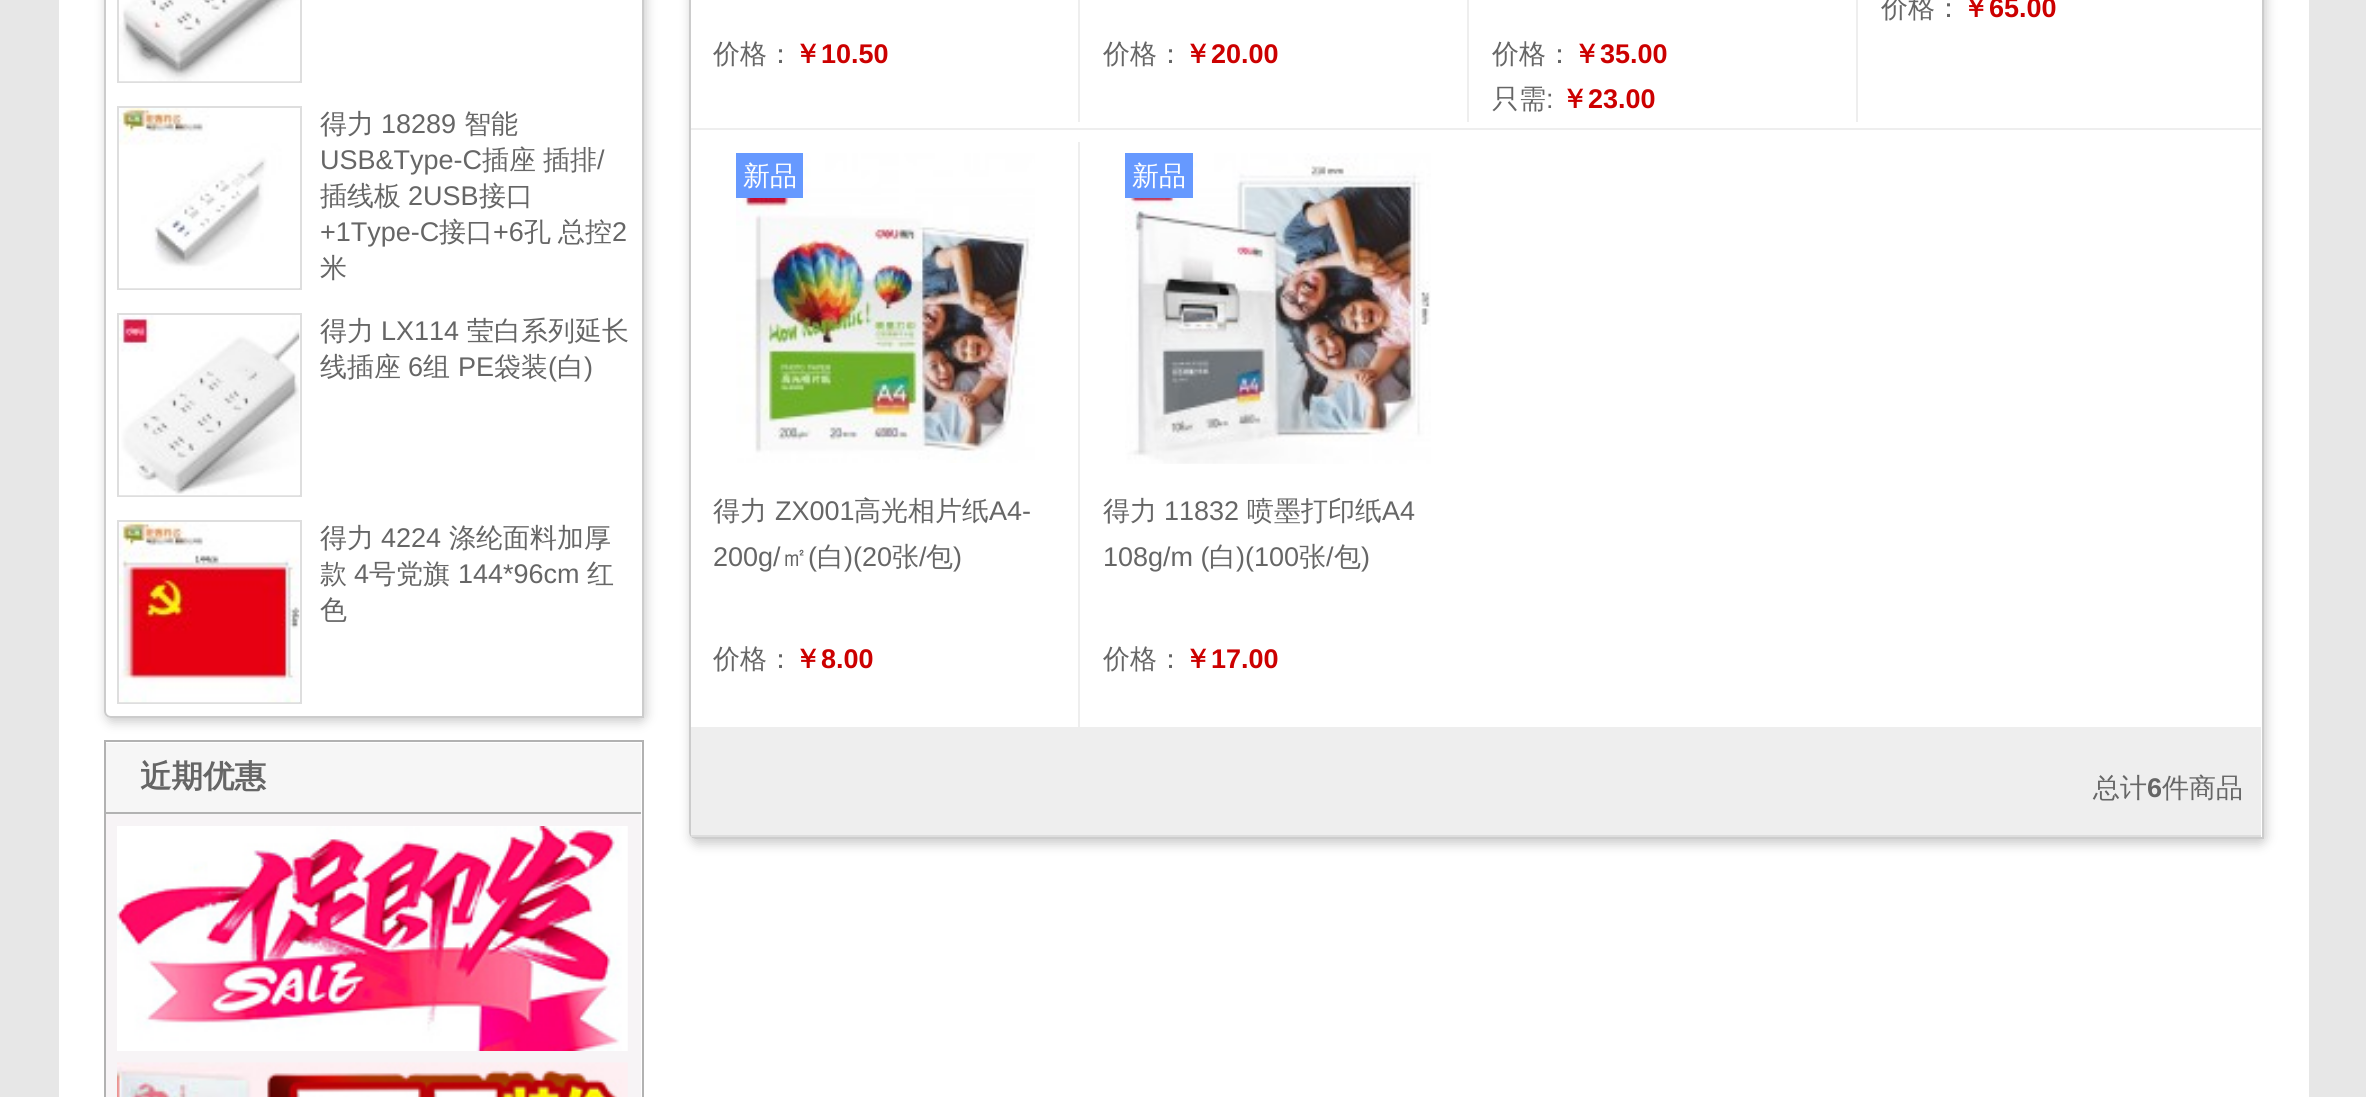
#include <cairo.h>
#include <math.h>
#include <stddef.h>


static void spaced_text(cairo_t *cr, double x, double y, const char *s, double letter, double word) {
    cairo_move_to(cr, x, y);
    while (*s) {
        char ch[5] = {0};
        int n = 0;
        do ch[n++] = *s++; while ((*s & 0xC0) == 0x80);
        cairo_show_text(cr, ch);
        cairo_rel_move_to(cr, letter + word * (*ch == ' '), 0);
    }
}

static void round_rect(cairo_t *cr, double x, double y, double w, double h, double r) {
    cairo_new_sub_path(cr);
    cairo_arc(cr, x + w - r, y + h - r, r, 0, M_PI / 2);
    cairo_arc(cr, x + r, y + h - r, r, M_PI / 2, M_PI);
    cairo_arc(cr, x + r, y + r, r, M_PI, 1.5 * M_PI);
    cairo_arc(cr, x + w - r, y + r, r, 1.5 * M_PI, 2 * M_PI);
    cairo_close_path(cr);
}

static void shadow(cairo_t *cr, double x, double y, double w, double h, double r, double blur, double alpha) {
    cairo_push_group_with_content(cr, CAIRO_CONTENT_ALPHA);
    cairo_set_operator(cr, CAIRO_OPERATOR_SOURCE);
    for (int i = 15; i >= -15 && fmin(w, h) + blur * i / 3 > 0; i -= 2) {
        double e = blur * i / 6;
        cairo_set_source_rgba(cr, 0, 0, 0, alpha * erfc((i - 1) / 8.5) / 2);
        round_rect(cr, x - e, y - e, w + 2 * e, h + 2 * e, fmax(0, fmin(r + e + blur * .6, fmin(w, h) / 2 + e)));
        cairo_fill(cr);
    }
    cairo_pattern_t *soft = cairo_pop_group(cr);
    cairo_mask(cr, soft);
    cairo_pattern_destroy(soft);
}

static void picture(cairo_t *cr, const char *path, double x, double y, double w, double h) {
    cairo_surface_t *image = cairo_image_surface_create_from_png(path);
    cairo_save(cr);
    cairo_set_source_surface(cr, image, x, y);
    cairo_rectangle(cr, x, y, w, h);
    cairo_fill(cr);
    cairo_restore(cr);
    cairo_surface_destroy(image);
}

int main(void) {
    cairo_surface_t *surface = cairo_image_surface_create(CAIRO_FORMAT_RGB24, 2366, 1097);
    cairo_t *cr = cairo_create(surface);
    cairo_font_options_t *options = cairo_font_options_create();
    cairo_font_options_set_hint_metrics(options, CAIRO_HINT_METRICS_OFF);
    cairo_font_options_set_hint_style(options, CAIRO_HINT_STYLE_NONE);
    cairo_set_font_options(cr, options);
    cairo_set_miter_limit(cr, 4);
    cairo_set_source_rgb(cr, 0.906, 0.906, 0.906);
    cairo_paint(cr);
    cairo_set_source_rgb(cr, 1, 1, 1);
    cairo_rectangle(cr, 59, 0, 2250, 1097);
    cairo_fill(cr);
    cairo_save(cr);
    cairo_set_fill_rule(cr, CAIRO_FILL_RULE_EVEN_ODD);
    cairo_new_path(cr);
    cairo_move_to(cr, 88, 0);
    cairo_line_to(cr, 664, 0);
    cairo_line_to(cr, 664, 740);
    cairo_line_to(cr, 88, 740);
    cairo_close_path(cr);
    cairo_move_to(cr, 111, -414);
    cairo_line_to(cr, 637, -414);
    cairo_curve_to(cr, 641, -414, 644, -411, 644, -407);
    cairo_line_to(cr, 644, 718);
    cairo_line_to(cr, 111, 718);
    cairo_curve_to(cr, 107, 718, 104, 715, 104, 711);
    cairo_line_to(cr, 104, -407);
    cairo_curve_to(cr, 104, -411, 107, -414, 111, -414);
    cairo_close_path(cr);
    cairo_clip(cr);
    cairo_set_source_rgb(cr, 0.8, 0.8, 0.8);
    shadow(cr, 106, -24, 540, 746, 7, 5.5, 1);
    cairo_restore(cr);
    cairo_new_path(cr);
    cairo_move_to(cr, 111, -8);
    cairo_line_to(cr, 637, -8);
    cairo_curve_to(cr, 640.5, -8, 643, -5.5, 643, -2);
    cairo_line_to(cr, 643, 717);
    cairo_line_to(cr, 111, 717);
    cairo_curve_to(cr, 107.5, 717, 105, 714.5, 105, 711);
    cairo_line_to(cr, 105, -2);
    cairo_curve_to(cr, 105, -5.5, 107.5, -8, 111, -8);
    cairo_close_path(cr);
    cairo_set_source_rgb(cr, 0.8, 0.8, 0.8);
    cairo_stroke(cr);
    cairo_rectangle(cr, 118, -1, 183, 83);
    cairo_set_source_rgb(cr, 0.871, 0.871, 0.871);
    cairo_stroke(cr);
    picture(cr, "img1.png", 119, 0, 180, 82);
    cairo_rectangle(cr, 118, 107, 183, 182);
    cairo_stroke(cr);
    picture(cr, "img2.png", 119, 108, 180, 181);
    cairo_select_font_face(cr, "WenQuanYi Zen Hei Medium", CAIRO_FONT_SLANT_NORMAL, CAIRO_FONT_WEIGHT_NORMAL);
    cairo_set_font_size(cr, 27);
    cairo_set_source_rgb(cr, 0.4, 0.4, 0.4);
    cairo_move_to(cr, 320, 133);
    cairo_show_text(cr, "得力");
    cairo_select_font_face(cr, "Liberation Sans", CAIRO_FONT_SLANT_NORMAL, CAIRO_FONT_WEIGHT_NORMAL);
    cairo_move_to(cr, 381, 133);
    cairo_show_text(cr, "18289");
    cairo_select_font_face(cr, "WenQuanYi Zen Hei Medium", CAIRO_FONT_SLANT_NORMAL, CAIRO_FONT_WEIGHT_NORMAL);
    cairo_move_to(cr, 464, 133);
    cairo_show_text(cr, "智能");
    cairo_select_font_face(cr, "Liberation Sans", CAIRO_FONT_SLANT_NORMAL, CAIRO_FONT_WEIGHT_NORMAL);
    cairo_move_to(cr, 320, 169);
    cairo_show_text(cr, "USB&Type-C");
    cairo_select_font_face(cr, "WenQuanYi Zen Hei Medium", CAIRO_FONT_SLANT_NORMAL, CAIRO_FONT_WEIGHT_NORMAL);
    spaced_text(cr, 482, 169, "插座 插排", 0, -1);
    cairo_select_font_face(cr, "Liberation Sans", CAIRO_FONT_SLANT_NORMAL, CAIRO_FONT_WEIGHT_NORMAL);
    cairo_move_to(cr, 597, 169);
    cairo_show_text(cr, "/");
    cairo_select_font_face(cr, "WenQuanYi Zen Hei Medium", CAIRO_FONT_SLANT_NORMAL, CAIRO_FONT_WEIGHT_NORMAL);
    cairo_move_to(cr, 320, 205);
    cairo_show_text(cr, "插线板");
    cairo_select_font_face(cr, "Liberation Sans", CAIRO_FONT_SLANT_NORMAL, CAIRO_FONT_WEIGHT_NORMAL);
    cairo_move_to(cr, 408, 205);
    cairo_show_text(cr, "2USB");
    cairo_select_font_face(cr, "WenQuanYi Zen Hei Medium", CAIRO_FONT_SLANT_NORMAL, CAIRO_FONT_WEIGHT_NORMAL);
    cairo_move_to(cr, 479, 205);
    cairo_show_text(cr, "接口");
    cairo_select_font_face(cr, "Liberation Sans", CAIRO_FONT_SLANT_NORMAL, CAIRO_FONT_WEIGHT_NORMAL);
    cairo_move_to(cr, 320, 241);
    cairo_show_text(cr, "+1Type-C");
    cairo_select_font_face(cr, "WenQuanYi Zen Hei Medium", CAIRO_FONT_SLANT_NORMAL, CAIRO_FONT_WEIGHT_NORMAL);
    cairo_move_to(cr, 439, 241);
    cairo_show_text(cr, "接口");
    cairo_select_font_face(cr, "Liberation Sans", CAIRO_FONT_SLANT_NORMAL, CAIRO_FONT_WEIGHT_NORMAL);
    cairo_move_to(cr, 493, 241);
    cairo_show_text(cr, "+6");
    cairo_select_font_face(cr, "WenQuanYi Zen Hei Medium", CAIRO_FONT_SLANT_NORMAL, CAIRO_FONT_WEIGHT_NORMAL);
    spaced_text(cr, 524, 241, "孔 总控", 0, -1);
    cairo_select_font_face(cr, "Liberation Sans", CAIRO_FONT_SLANT_NORMAL, CAIRO_FONT_WEIGHT_NORMAL);
    cairo_move_to(cr, 612, 241);
    cairo_show_text(cr, "2");
    cairo_select_font_face(cr, "WenQuanYi Zen Hei Medium", CAIRO_FONT_SLANT_NORMAL, CAIRO_FONT_WEIGHT_NORMAL);
    cairo_move_to(cr, 320, 277);
    cairo_show_text(cr, "米");
    cairo_rectangle(cr, 118, 314, 183, 182);
    cairo_set_source_rgb(cr, 0.871, 0.871, 0.871);
    cairo_stroke(cr);
    picture(cr, "img3.png", 119, 315, 181, 181);
    cairo_set_source_rgb(cr, 0.4, 0.4, 0.4);
    cairo_move_to(cr, 320, 340);
    cairo_show_text(cr, "得力");
    cairo_select_font_face(cr, "Liberation Sans", CAIRO_FONT_SLANT_NORMAL, CAIRO_FONT_WEIGHT_NORMAL);
    cairo_move_to(cr, 381, 340);
    cairo_show_text(cr, "LX114");
    cairo_select_font_face(cr, "WenQuanYi Zen Hei Medium", CAIRO_FONT_SLANT_NORMAL, CAIRO_FONT_WEIGHT_NORMAL);
    cairo_move_to(cr, 467, 340);
    cairo_show_text(cr, "莹白系列延长");
    cairo_move_to(cr, 320, 376);
    cairo_show_text(cr, "线插座");
    cairo_select_font_face(cr, "Liberation Sans", CAIRO_FONT_SLANT_NORMAL, CAIRO_FONT_WEIGHT_NORMAL);
    cairo_move_to(cr, 408, 376);
    cairo_show_text(cr, "6");
    cairo_select_font_face(cr, "WenQuanYi Zen Hei Medium", CAIRO_FONT_SLANT_NORMAL, CAIRO_FONT_WEIGHT_NORMAL);
    cairo_move_to(cr, 423, 376);
    cairo_show_text(cr, "组");
    cairo_select_font_face(cr, "Liberation Sans", CAIRO_FONT_SLANT_NORMAL, CAIRO_FONT_WEIGHT_NORMAL);
    cairo_move_to(cr, 458, 376);
    cairo_show_text(cr, "PE");
    cairo_select_font_face(cr, "WenQuanYi Zen Hei Medium", CAIRO_FONT_SLANT_NORMAL, CAIRO_FONT_WEIGHT_NORMAL);
    cairo_move_to(cr, 494, 376);
    cairo_show_text(cr, "袋装");
    cairo_select_font_face(cr, "Liberation Sans", CAIRO_FONT_SLANT_NORMAL, CAIRO_FONT_WEIGHT_NORMAL);
    cairo_move_to(cr, 548, 376);
    cairo_show_text(cr, "(");
    cairo_select_font_face(cr, "WenQuanYi Zen Hei Medium", CAIRO_FONT_SLANT_NORMAL, CAIRO_FONT_WEIGHT_NORMAL);
    cairo_move_to(cr, 557, 376);
    cairo_show_text(cr, "白");
    cairo_select_font_face(cr, "Liberation Sans", CAIRO_FONT_SLANT_NORMAL, CAIRO_FONT_WEIGHT_NORMAL);
    cairo_move_to(cr, 584, 376);
    cairo_show_text(cr, ")");
    cairo_rectangle(cr, 118, 521, 183, 182);
    cairo_set_source_rgb(cr, 0.871, 0.871, 0.871);
    cairo_stroke(cr);
    picture(cr, "img4.png", 119, 522, 181, 181);
    cairo_select_font_face(cr, "WenQuanYi Zen Hei Medium", CAIRO_FONT_SLANT_NORMAL, CAIRO_FONT_WEIGHT_NORMAL);
    cairo_set_source_rgb(cr, 0.4, 0.4, 0.4);
    cairo_move_to(cr, 320, 547);
    cairo_show_text(cr, "得力");
    cairo_select_font_face(cr, "Liberation Sans", CAIRO_FONT_SLANT_NORMAL, CAIRO_FONT_WEIGHT_NORMAL);
    cairo_move_to(cr, 381, 547);
    cairo_show_text(cr, "4224");
    cairo_select_font_face(cr, "WenQuanYi Zen Hei Medium", CAIRO_FONT_SLANT_NORMAL, CAIRO_FONT_WEIGHT_NORMAL);
    cairo_move_to(cr, 449, 547);
    cairo_show_text(cr, "涤纶面料加厚");
    cairo_move_to(cr, 320, 583);
    cairo_show_text(cr, "款");
    cairo_select_font_face(cr, "Liberation Sans", CAIRO_FONT_SLANT_NORMAL, CAIRO_FONT_WEIGHT_NORMAL);
    cairo_move_to(cr, 354, 583);
    cairo_show_text(cr, "4");
    cairo_select_font_face(cr, "WenQuanYi Zen Hei Medium", CAIRO_FONT_SLANT_NORMAL, CAIRO_FONT_WEIGHT_NORMAL);
    cairo_move_to(cr, 369, 583);
    cairo_show_text(cr, "号党旗");
    cairo_select_font_face(cr, "Liberation Sans", CAIRO_FONT_SLANT_NORMAL, CAIRO_FONT_WEIGHT_NORMAL);
    cairo_move_to(cr, 458, 583);
    cairo_show_text(cr, "144*96cm");
    cairo_select_font_face(cr, "WenQuanYi Zen Hei Medium", CAIRO_FONT_SLANT_NORMAL, CAIRO_FONT_WEIGHT_NORMAL);
    cairo_move_to(cr, 587, 583);
    cairo_show_text(cr, "红");
    cairo_move_to(cr, 320, 619);
    cairo_show_text(cr, "色");
    cairo_rectangle(cr, 105, 741, 538, 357);
    cairo_set_source_rgb(cr, 0.698, 0.698, 0.698);
    cairo_stroke(cr);
    cairo_set_source_rgb(cr, 0.961, 0.961, 0.961);
    cairo_rectangle(cr, 106, 743, 535, 72);
    cairo_fill(cr);
    cairo_set_source_rgb(cr, 0.698, 0.698, 0.698);
    cairo_rectangle(cr, 106, 812, 535, 2);
    cairo_fill(cr);
    cairo_select_font_face(cr, "WenQuanYi Zen Hei", CAIRO_FONT_SLANT_NORMAL, CAIRO_FONT_WEIGHT_BOLD);
    cairo_set_font_size(cr, 31.5);
    cairo_set_source_rgb(cr, 0.4, 0.4, 0.4);
    cairo_move_to(cr, 140, 787);
    cairo_show_text(cr, "近期优惠");
    cairo_set_source_rgb(cr, 0.965, 0.957, 0.961);
    cairo_rectangle(cr, 106, 815, 535, 282);
    cairo_fill(cr);
    picture(cr, "img5.png", 117, 826, 511, 225);
    picture(cr, "img6.png", 117, 1062, 511, 35);
    cairo_save(cr);
    cairo_set_fill_rule(cr, CAIRO_FILL_RULE_EVEN_ODD);
    cairo_new_path(cr);
    cairo_move_to(cr, 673, 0);
    cairo_line_to(cr, 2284, 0);
    cairo_line_to(cr, 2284, 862);
    cairo_line_to(cr, 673, 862);
    cairo_close_path(cr);
    cairo_move_to(cr, 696, -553);
    cairo_line_to(cr, 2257, -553);
    cairo_curve_to(cr, 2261, -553, 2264, -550, 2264, -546);
    cairo_line_to(cr, 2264, 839);
    cairo_line_to(cr, 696, 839);
    cairo_curve_to(cr, 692, 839, 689, 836, 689, 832);
    cairo_line_to(cr, 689, -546);
    cairo_curve_to(cr, 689, -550, 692, -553, 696, -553);
    cairo_close_path(cr);
    cairo_clip(cr);
    cairo_set_source_rgb(cr, 0.8, 0.8, 0.8);
    shadow(cr, 691, -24, 1575, 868, 7, 5.5, 1);
    cairo_restore(cr);
    cairo_new_path(cr);
    cairo_move_to(cr, 696, -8);
    cairo_line_to(cr, 2257, -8);
    cairo_curve_to(cr, 2260.5, -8, 2263, -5.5, 2263, -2);
    cairo_line_to(cr, 2263, 838);
    cairo_line_to(cr, 696, 838);
    cairo_curve_to(cr, 692.5, 838, 690, 835.5, 690, 832);
    cairo_line_to(cr, 690, -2);
    cairo_curve_to(cr, 690, -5.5, 692.5, -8, 696, -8);
    cairo_close_path(cr);
    cairo_set_source_rgb(cr, 0.8, 0.8, 0.8);
    cairo_stroke(cr);
    cairo_set_source_rgb(cr, 0.933, 0.933, 0.933);
    cairo_rectangle(cr, 1856, 0, 2, 122);
    cairo_fill(cr);
    cairo_select_font_face(cr, "WenQuanYi Zen Hei Medium", CAIRO_FONT_SLANT_NORMAL, CAIRO_FONT_WEIGHT_NORMAL);
    cairo_set_font_size(cr, 27);
    cairo_set_source_rgb(cr, 0.4, 0.4, 0.4);
    cairo_move_to(cr, 1881, 17);
    cairo_show_text(cr, "价格：");
    cairo_select_font_face(cr, "WenQuanYi Zen Hei", CAIRO_FONT_SLANT_NORMAL, CAIRO_FONT_WEIGHT_BOLD);
    cairo_set_source_rgb(cr, 0.8, 0, 0);
    cairo_move_to(cr, 1962, 17);
    cairo_show_text(cr, "￥");
    cairo_select_font_face(cr, "Liberation Sans", CAIRO_FONT_SLANT_NORMAL, CAIRO_FONT_WEIGHT_BOLD);
    cairo_move_to(cr, 1989, 17);
    cairo_show_text(cr, "65.00");
    cairo_select_font_face(cr, "WenQuanYi Zen Hei Medium", CAIRO_FONT_SLANT_NORMAL, CAIRO_FONT_WEIGHT_NORMAL);
    cairo_set_source_rgb(cr, 0.4, 0.4, 0.4);
    cairo_move_to(cr, 713, 63);
    cairo_show_text(cr, "价格：");
    cairo_select_font_face(cr, "WenQuanYi Zen Hei", CAIRO_FONT_SLANT_NORMAL, CAIRO_FONT_WEIGHT_BOLD);
    cairo_set_source_rgb(cr, 0.8, 0, 0);
    cairo_move_to(cr, 794, 63);
    cairo_show_text(cr, "￥");
    cairo_select_font_face(cr, "Liberation Sans", CAIRO_FONT_SLANT_NORMAL, CAIRO_FONT_WEIGHT_BOLD);
    cairo_move_to(cr, 821, 63);
    cairo_show_text(cr, "10.50");
    cairo_set_source_rgb(cr, 0.933, 0.933, 0.933);
    cairo_rectangle(cr, 1078, 0, 2, 122);
    cairo_fill(cr);
    cairo_select_font_face(cr, "WenQuanYi Zen Hei Medium", CAIRO_FONT_SLANT_NORMAL, CAIRO_FONT_WEIGHT_NORMAL);
    cairo_set_source_rgb(cr, 0.4, 0.4, 0.4);
    cairo_move_to(cr, 1103, 63);
    cairo_show_text(cr, "价格：");
    cairo_select_font_face(cr, "WenQuanYi Zen Hei", CAIRO_FONT_SLANT_NORMAL, CAIRO_FONT_WEIGHT_BOLD);
    cairo_set_source_rgb(cr, 0.8, 0, 0);
    cairo_move_to(cr, 1184, 63);
    cairo_show_text(cr, "￥");
    cairo_select_font_face(cr, "Liberation Sans", CAIRO_FONT_SLANT_NORMAL, CAIRO_FONT_WEIGHT_BOLD);
    cairo_move_to(cr, 1211, 63);
    cairo_show_text(cr, "20.00");
    cairo_set_source_rgb(cr, 0.933, 0.933, 0.933);
    cairo_rectangle(cr, 1467, 0, 2, 122);
    cairo_fill(cr);
    cairo_select_font_face(cr, "WenQuanYi Zen Hei Medium", CAIRO_FONT_SLANT_NORMAL, CAIRO_FONT_WEIGHT_NORMAL);
    cairo_set_source_rgb(cr, 0.4, 0.4, 0.4);
    cairo_move_to(cr, 1492, 63);
    cairo_show_text(cr, "价格：");
    cairo_select_font_face(cr, "WenQuanYi Zen Hei", CAIRO_FONT_SLANT_NORMAL, CAIRO_FONT_WEIGHT_BOLD);
    cairo_set_source_rgb(cr, 0.8, 0, 0);
    cairo_move_to(cr, 1573, 63);
    cairo_show_text(cr, "￥");
    cairo_select_font_face(cr, "Liberation Sans", CAIRO_FONT_SLANT_NORMAL, CAIRO_FONT_WEIGHT_BOLD);
    cairo_move_to(cr, 1600, 63);
    cairo_show_text(cr, "35.00");
    cairo_select_font_face(cr, "WenQuanYi Zen Hei Medium", CAIRO_FONT_SLANT_NORMAL, CAIRO_FONT_WEIGHT_NORMAL);
    cairo_set_source_rgb(cr, 0.4, 0.4, 0.4);
    cairo_move_to(cr, 1492, 108);
    cairo_show_text(cr, "只需");
    cairo_select_font_face(cr, "Liberation Sans", CAIRO_FONT_SLANT_NORMAL, CAIRO_FONT_WEIGHT_NORMAL);
    cairo_move_to(cr, 1546, 108);
    cairo_show_text(cr, ":");
    cairo_select_font_face(cr, "WenQuanYi Zen Hei", CAIRO_FONT_SLANT_NORMAL, CAIRO_FONT_WEIGHT_BOLD);
    cairo_set_source_rgb(cr, 0.8, 0, 0);
    cairo_move_to(cr, 1561, 108);
    cairo_show_text(cr, "￥");
    cairo_select_font_face(cr, "Liberation Sans", CAIRO_FONT_SLANT_NORMAL, CAIRO_FONT_WEIGHT_BOLD);
    cairo_move_to(cr, 1588, 108);
    cairo_show_text(cr, "23.00");
    cairo_set_source_rgb(cr, 0.933, 0.933, 0.933);
    cairo_rectangle(cr, 691, 128, 1570, 2);
    cairo_fill(cr);
    picture(cr, "img7.png", 736, 153, 299, 310);
    cairo_set_source_rgb(cr, 0.4, 0.6, 1);
    cairo_rectangle(cr, 736, 153, 67, 45);
    cairo_fill(cr);
    cairo_select_font_face(cr, "WenQuanYi Zen Hei Medium", CAIRO_FONT_SLANT_NORMAL, CAIRO_FONT_WEIGHT_NORMAL);
    cairo_set_source_rgb(cr, 1, 1, 1);
    cairo_move_to(cr, 743, 185);
    cairo_show_text(cr, "新品");
    cairo_set_source_rgb(cr, 0.4, 0.4, 0.4);
    cairo_move_to(cr, 713, 520);
    cairo_show_text(cr, "得力");
    cairo_select_font_face(cr, "Liberation Sans", CAIRO_FONT_SLANT_NORMAL, CAIRO_FONT_WEIGHT_NORMAL);
    cairo_move_to(cr, 775, 520);
    cairo_show_text(cr, "ZX001");
    cairo_select_font_face(cr, "WenQuanYi Zen Hei Medium", CAIRO_FONT_SLANT_NORMAL, CAIRO_FONT_WEIGHT_NORMAL);
    cairo_move_to(cr, 854, 520);
    cairo_show_text(cr, "高光相片纸");
    cairo_select_font_face(cr, "Liberation Sans", CAIRO_FONT_SLANT_NORMAL, CAIRO_FONT_WEIGHT_NORMAL);
    cairo_move_to(cr, 989, 520);
    cairo_show_text(cr, "A4-");
    cairo_move_to(cr, 713, 566);
    cairo_show_text(cr, "200g/");
    cairo_select_font_face(cr, "WenQuanYi Zen Hei Medium", CAIRO_FONT_SLANT_NORMAL, CAIRO_FONT_WEIGHT_NORMAL);
    cairo_move_to(cr, 781, 566);
    cairo_show_text(cr, "㎡");
    cairo_select_font_face(cr, "Liberation Sans", CAIRO_FONT_SLANT_NORMAL, CAIRO_FONT_WEIGHT_NORMAL);
    cairo_move_to(cr, 808, 566);
    cairo_show_text(cr, "(");
    cairo_select_font_face(cr, "WenQuanYi Zen Hei Medium", CAIRO_FONT_SLANT_NORMAL, CAIRO_FONT_WEIGHT_NORMAL);
    cairo_move_to(cr, 817, 566);
    cairo_show_text(cr, "白");
    cairo_select_font_face(cr, "Liberation Sans", CAIRO_FONT_SLANT_NORMAL, CAIRO_FONT_WEIGHT_NORMAL);
    cairo_move_to(cr, 844, 566);
    cairo_show_text(cr, ")(20");
    cairo_select_font_face(cr, "WenQuanYi Zen Hei Medium", CAIRO_FONT_SLANT_NORMAL, CAIRO_FONT_WEIGHT_NORMAL);
    cairo_move_to(cr, 892, 566);
    cairo_show_text(cr, "张");
    cairo_select_font_face(cr, "Liberation Sans", CAIRO_FONT_SLANT_NORMAL, CAIRO_FONT_WEIGHT_NORMAL);
    cairo_move_to(cr, 919, 566);
    cairo_show_text(cr, "/");
    cairo_select_font_face(cr, "WenQuanYi Zen Hei Medium", CAIRO_FONT_SLANT_NORMAL, CAIRO_FONT_WEIGHT_NORMAL);
    cairo_move_to(cr, 926, 566);
    cairo_show_text(cr, "包");
    cairo_select_font_face(cr, "Liberation Sans", CAIRO_FONT_SLANT_NORMAL, CAIRO_FONT_WEIGHT_NORMAL);
    cairo_move_to(cr, 953, 566);
    cairo_show_text(cr, ")");
    cairo_select_font_face(cr, "WenQuanYi Zen Hei Medium", CAIRO_FONT_SLANT_NORMAL, CAIRO_FONT_WEIGHT_NORMAL);
    cairo_move_to(cr, 713, 668);
    cairo_show_text(cr, "价格：");
    cairo_select_font_face(cr, "WenQuanYi Zen Hei", CAIRO_FONT_SLANT_NORMAL, CAIRO_FONT_WEIGHT_BOLD);
    cairo_set_source_rgb(cr, 0.8, 0, 0);
    cairo_move_to(cr, 794, 668);
    cairo_show_text(cr, "￥");
    cairo_select_font_face(cr, "Liberation Sans", CAIRO_FONT_SLANT_NORMAL, CAIRO_FONT_WEIGHT_BOLD);
    cairo_move_to(cr, 821, 668);
    cairo_show_text(cr, "8.00");
    cairo_set_source_rgb(cr, 0.933, 0.933, 0.933);
    cairo_rectangle(cr, 1078, 142, 2, 585);
    cairo_fill(cr);
    picture(cr, "img8.png", 1125, 153, 306, 311);
    cairo_set_source_rgb(cr, 0.4, 0.6, 1);
    cairo_rectangle(cr, 1125, 153, 68, 45);
    cairo_fill(cr);
    cairo_select_font_face(cr, "WenQuanYi Zen Hei Medium", CAIRO_FONT_SLANT_NORMAL, CAIRO_FONT_WEIGHT_NORMAL);
    cairo_set_source_rgb(cr, 1, 1, 1);
    cairo_move_to(cr, 1132, 185);
    cairo_show_text(cr, "新品");
    cairo_set_source_rgb(cr, 0.4, 0.4, 0.4);
    cairo_move_to(cr, 1103, 520);
    cairo_show_text(cr, "得力");
    cairo_select_font_face(cr, "Liberation Sans", CAIRO_FONT_SLANT_NORMAL, CAIRO_FONT_WEIGHT_NORMAL);
    cairo_move_to(cr, 1164, 520);
    cairo_show_text(cr, "11832");
    cairo_select_font_face(cr, "WenQuanYi Zen Hei Medium", CAIRO_FONT_SLANT_NORMAL, CAIRO_FONT_WEIGHT_NORMAL);
    cairo_move_to(cr, 1247, 520);
    cairo_show_text(cr, "喷墨打印纸");
    cairo_select_font_face(cr, "Liberation Sans", CAIRO_FONT_SLANT_NORMAL, CAIRO_FONT_WEIGHT_NORMAL);
    cairo_move_to(cr, 1382, 520);
    cairo_show_text(cr, "A4");
    cairo_move_to(cr, 1103, 566);
    cairo_show_text(cr, "108g/m (");
    cairo_select_font_face(cr, "WenQuanYi Zen Hei Medium", CAIRO_FONT_SLANT_NORMAL, CAIRO_FONT_WEIGHT_NORMAL);
    cairo_move_to(cr, 1209, 566);
    cairo_show_text(cr, "白");
    cairo_select_font_face(cr, "Liberation Sans", CAIRO_FONT_SLANT_NORMAL, CAIRO_FONT_WEIGHT_NORMAL);
    cairo_move_to(cr, 1236, 566);
    cairo_show_text(cr, ")(100");
    cairo_select_font_face(cr, "WenQuanYi Zen Hei Medium", CAIRO_FONT_SLANT_NORMAL, CAIRO_FONT_WEIGHT_NORMAL);
    cairo_move_to(cr, 1299, 566);
    cairo_show_text(cr, "张");
    cairo_select_font_face(cr, "Liberation Sans", CAIRO_FONT_SLANT_NORMAL, CAIRO_FONT_WEIGHT_NORMAL);
    cairo_move_to(cr, 1326, 566);
    cairo_show_text(cr, "/");
    cairo_select_font_face(cr, "WenQuanYi Zen Hei Medium", CAIRO_FONT_SLANT_NORMAL, CAIRO_FONT_WEIGHT_NORMAL);
    cairo_move_to(cr, 1334, 566);
    cairo_show_text(cr, "包");
    cairo_select_font_face(cr, "Liberation Sans", CAIRO_FONT_SLANT_NORMAL, CAIRO_FONT_WEIGHT_NORMAL);
    cairo_move_to(cr, 1361, 566);
    cairo_show_text(cr, ")");
    cairo_select_font_face(cr, "WenQuanYi Zen Hei Medium", CAIRO_FONT_SLANT_NORMAL, CAIRO_FONT_WEIGHT_NORMAL);
    cairo_move_to(cr, 1103, 668);
    cairo_show_text(cr, "价格：");
    cairo_select_font_face(cr, "WenQuanYi Zen Hei", CAIRO_FONT_SLANT_NORMAL, CAIRO_FONT_WEIGHT_BOLD);
    cairo_set_source_rgb(cr, 0.8, 0, 0);
    cairo_move_to(cr, 1184, 668);
    cairo_show_text(cr, "￥");
    cairo_select_font_face(cr, "Liberation Sans", CAIRO_FONT_SLANT_NORMAL, CAIRO_FONT_WEIGHT_BOLD);
    cairo_move_to(cr, 1211, 668);
    cairo_show_text(cr, "17.00");
    cairo_set_source_rgb(cr, 0.933, 0.933, 0.933);
    cairo_rectangle(cr, 691, 727, 1570, 108);
    cairo_fill(cr);
    cairo_set_source_rgb(cr, 0.867, 0.867, 0.867);
    cairo_rectangle(cr, 691, 835, 1570, 2);
    cairo_fill(cr);
    cairo_select_font_face(cr, "WenQuanYi Zen Hei Medium", CAIRO_FONT_SLANT_NORMAL, CAIRO_FONT_WEIGHT_NORMAL);
    cairo_set_source_rgb(cr, 0.4, 0.4, 0.4);
    cairo_move_to(cr, 2093, 797);
    cairo_show_text(cr, "总计");
    cairo_select_font_face(cr, "Liberation Sans", CAIRO_FONT_SLANT_NORMAL, CAIRO_FONT_WEIGHT_BOLD);
    cairo_move_to(cr, 2147, 797);
    cairo_show_text(cr, "6");
    cairo_select_font_face(cr, "WenQuanYi Zen Hei Medium", CAIRO_FONT_SLANT_NORMAL, CAIRO_FONT_WEIGHT_NORMAL);
    cairo_move_to(cr, 2162, 797);
    cairo_show_text(cr, "件商品");
    cairo_surface_write_to_png(surface, "page.png");
    cairo_font_options_destroy(options);
    cairo_destroy(cr);
    cairo_surface_destroy(surface);
    return 0;
}
